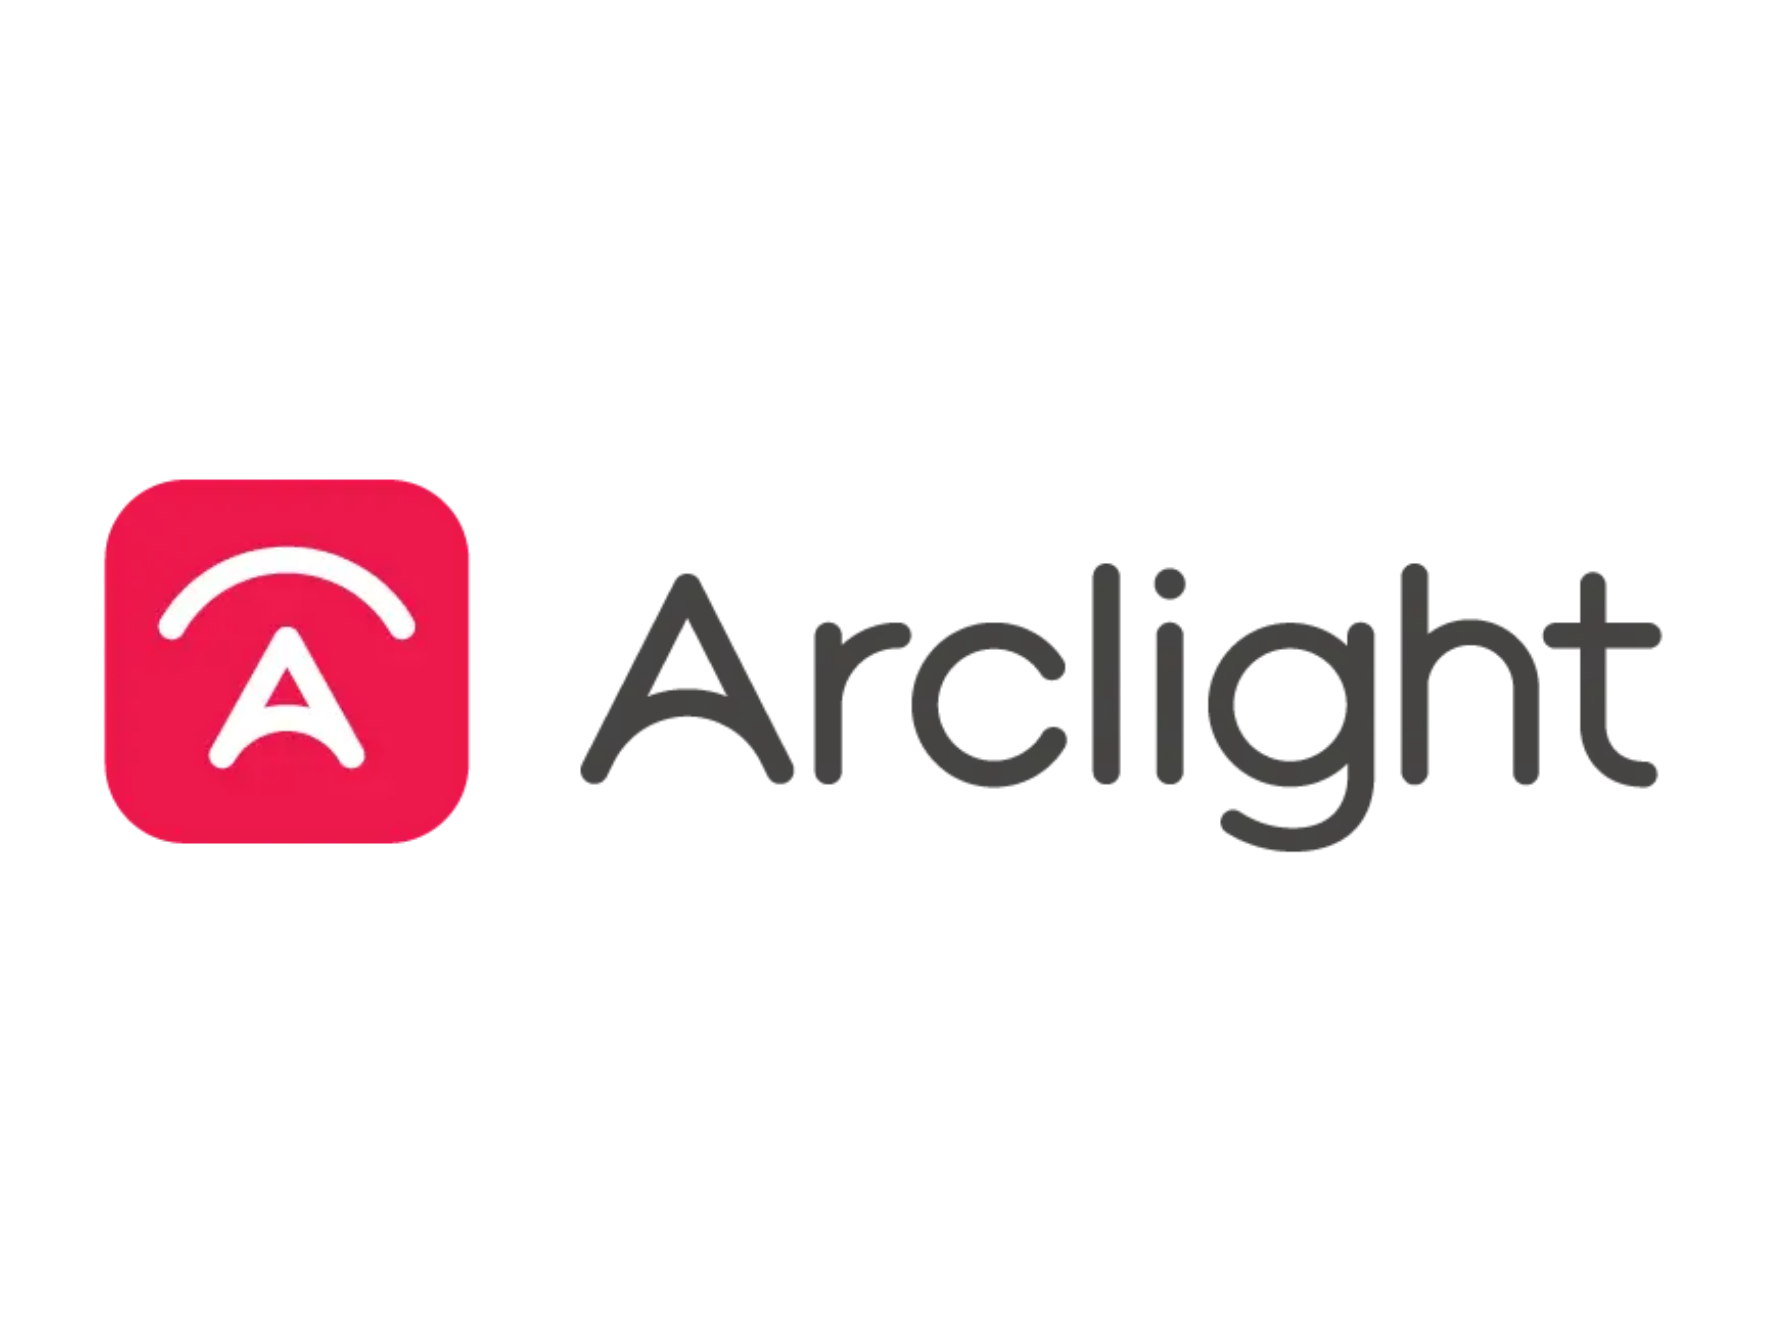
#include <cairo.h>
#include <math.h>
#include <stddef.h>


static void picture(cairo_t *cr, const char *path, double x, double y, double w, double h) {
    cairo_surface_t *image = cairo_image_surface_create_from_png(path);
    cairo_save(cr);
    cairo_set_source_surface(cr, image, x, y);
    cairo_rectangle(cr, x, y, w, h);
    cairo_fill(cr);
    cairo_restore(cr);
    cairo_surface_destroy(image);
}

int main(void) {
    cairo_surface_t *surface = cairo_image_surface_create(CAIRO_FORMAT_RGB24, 1766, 1329);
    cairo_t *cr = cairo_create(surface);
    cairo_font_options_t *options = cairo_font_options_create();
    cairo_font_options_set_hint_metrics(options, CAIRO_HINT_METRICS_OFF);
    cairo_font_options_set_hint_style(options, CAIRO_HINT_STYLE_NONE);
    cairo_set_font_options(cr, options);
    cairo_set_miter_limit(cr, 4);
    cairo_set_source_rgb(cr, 1, 1, 1);
    cairo_paint(cr);
    picture(cr, "img1.png", 103, 479, 1560, 374);
    cairo_surface_write_to_png(surface, "page.png");
    cairo_font_options_destroy(options);
    cairo_destroy(cr);
    cairo_surface_destroy(surface);
    return 0;
}
